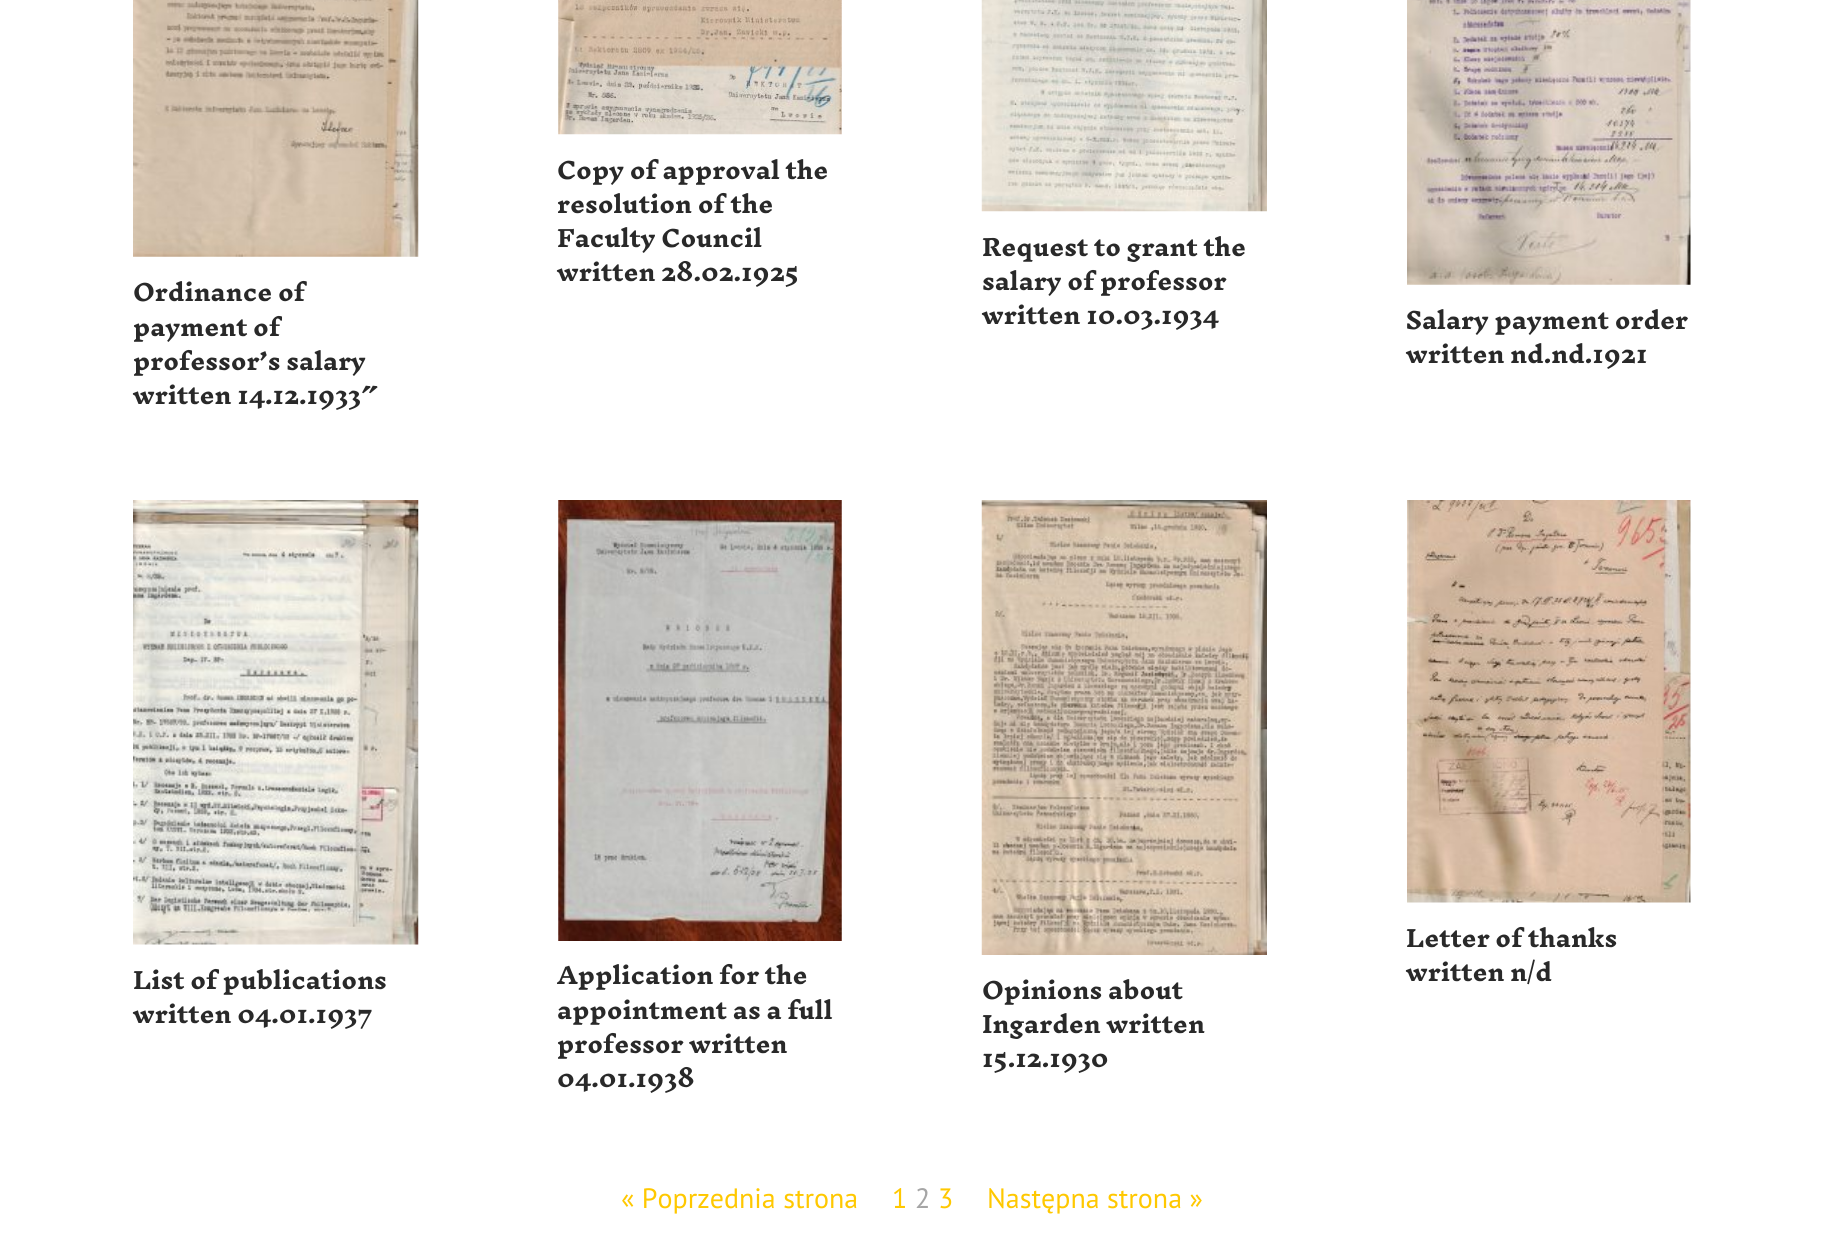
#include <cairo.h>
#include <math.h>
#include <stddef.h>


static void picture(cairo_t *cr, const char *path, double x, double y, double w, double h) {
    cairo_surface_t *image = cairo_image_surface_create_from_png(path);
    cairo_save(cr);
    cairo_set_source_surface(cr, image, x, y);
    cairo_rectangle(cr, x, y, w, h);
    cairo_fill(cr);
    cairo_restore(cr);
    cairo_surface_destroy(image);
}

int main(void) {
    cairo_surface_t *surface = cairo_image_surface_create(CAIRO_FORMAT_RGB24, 1823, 1256);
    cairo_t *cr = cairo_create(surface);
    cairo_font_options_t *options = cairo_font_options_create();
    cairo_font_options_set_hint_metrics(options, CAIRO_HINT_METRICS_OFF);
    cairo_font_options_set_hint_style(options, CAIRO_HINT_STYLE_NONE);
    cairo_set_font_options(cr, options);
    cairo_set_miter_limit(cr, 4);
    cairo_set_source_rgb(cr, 1, 1, 1);
    cairo_paint(cr);
    picture(cr, "img1.png", 133, 0, 286, 257);
    cairo_select_font_face(cr, "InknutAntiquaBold", CAIRO_FONT_SLANT_NORMAL, CAIRO_FONT_WEIGHT_BOLD);
    cairo_set_font_size(cr, 22.75);
    cairo_set_source_rgb(cr, 0.161, 0.161, 0.161);
    cairo_move_to(cr, 133, 301);
    cairo_show_text(cr, "Ordinance of");
    cairo_move_to(cr, 133, 336);
    cairo_show_text(cr, "payment of");
    cairo_move_to(cr, 133, 370);
    cairo_show_text(cr, "professor’s salary");
    cairo_move_to(cr, 133, 404);
    cairo_show_text(cr, "written 14.12.1933″");
    picture(cr, "img2.png", 558, 0, 284, 135);
    cairo_move_to(cr, 557, 179);
    cairo_show_text(cr, "Copy of approval the");
    cairo_move_to(cr, 557, 213);
    cairo_show_text(cr, "resolution of the");
    cairo_move_to(cr, 557, 247);
    cairo_show_text(cr, "Faculty Council");
    cairo_move_to(cr, 557, 281);
    cairo_show_text(cr, "written 28.02.1925");
    picture(cr, "img3.png", 981, 0, 286, 212);
    cairo_move_to(cr, 982, 256);
    cairo_show_text(cr, "Request to grant the");
    cairo_move_to(cr, 982, 290);
    cairo_show_text(cr, "salary of professor");
    cairo_move_to(cr, 982, 324);
    cairo_show_text(cr, "written 10.03.1934");
    picture(cr, "img4.png", 1407, 0, 284, 285);
    cairo_move_to(cr, 1406, 329);
    cairo_show_text(cr, "Salary payment order");
    cairo_move_to(cr, 1406, 363);
    cairo_show_text(cr, "written nd.nd.1921");
    picture(cr, "img5.png", 1407, 500, 284, 403);
    cairo_move_to(cr, 1406, 947);
    cairo_show_text(cr, "Letter of thanks");
    cairo_move_to(cr, 1406, 981);
    cairo_show_text(cr, "written n/d");
    picture(cr, "img6.png", 133, 500, 286, 445);
    cairo_move_to(cr, 133, 989);
    cairo_show_text(cr, "List of publications");
    cairo_move_to(cr, 133, 1023);
    cairo_show_text(cr, "written 04.01.1937");
    picture(cr, "img7.png", 558, 500, 284, 441);
    cairo_move_to(cr, 557, 984);
    cairo_show_text(cr, "Application for the");
    cairo_move_to(cr, 557, 1019);
    cairo_show_text(cr, "appointment as a full");
    cairo_move_to(cr, 557, 1053);
    cairo_show_text(cr, "professor written");
    cairo_move_to(cr, 557, 1087);
    cairo_show_text(cr, "04.01.1938");
    picture(cr, "img8.png", 981, 500, 286, 455);
    cairo_move_to(cr, 982, 999);
    cairo_show_text(cr, "Opinions about");
    cairo_move_to(cr, 982, 1033);
    cairo_show_text(cr, "Ingarden written");
    cairo_move_to(cr, 982, 1067);
    cairo_show_text(cr, "15.12.1930");
    cairo_select_font_face(cr, "PT Sans", CAIRO_FONT_SLANT_NORMAL, CAIRO_FONT_WEIGHT_NORMAL);
    cairo_set_font_size(cr, 28);
    cairo_set_source_rgb(cr, 1, 0.784, 0);
    cairo_move_to(cr, 621, 1208);
    cairo_show_text(cr, "« Poprzednia strona");
    cairo_move_to(cr, 892, 1208);
    cairo_show_text(cr, "1");
    cairo_set_source_rgb(cr, 0.647, 0.647, 0.647);
    cairo_move_to(cr, 915, 1208);
    cairo_show_text(cr, "2");
    cairo_set_source_rgb(cr, 1, 0.784, 0);
    cairo_move_to(cr, 938, 1208);
    cairo_show_text(cr, "3");
    cairo_move_to(cr, 987, 1208);
    cairo_show_text(cr, "Następna strona »");
    cairo_surface_write_to_png(surface, "page.png");
    cairo_font_options_destroy(options);
    cairo_destroy(cr);
    cairo_surface_destroy(surface);
    return 0;
}
